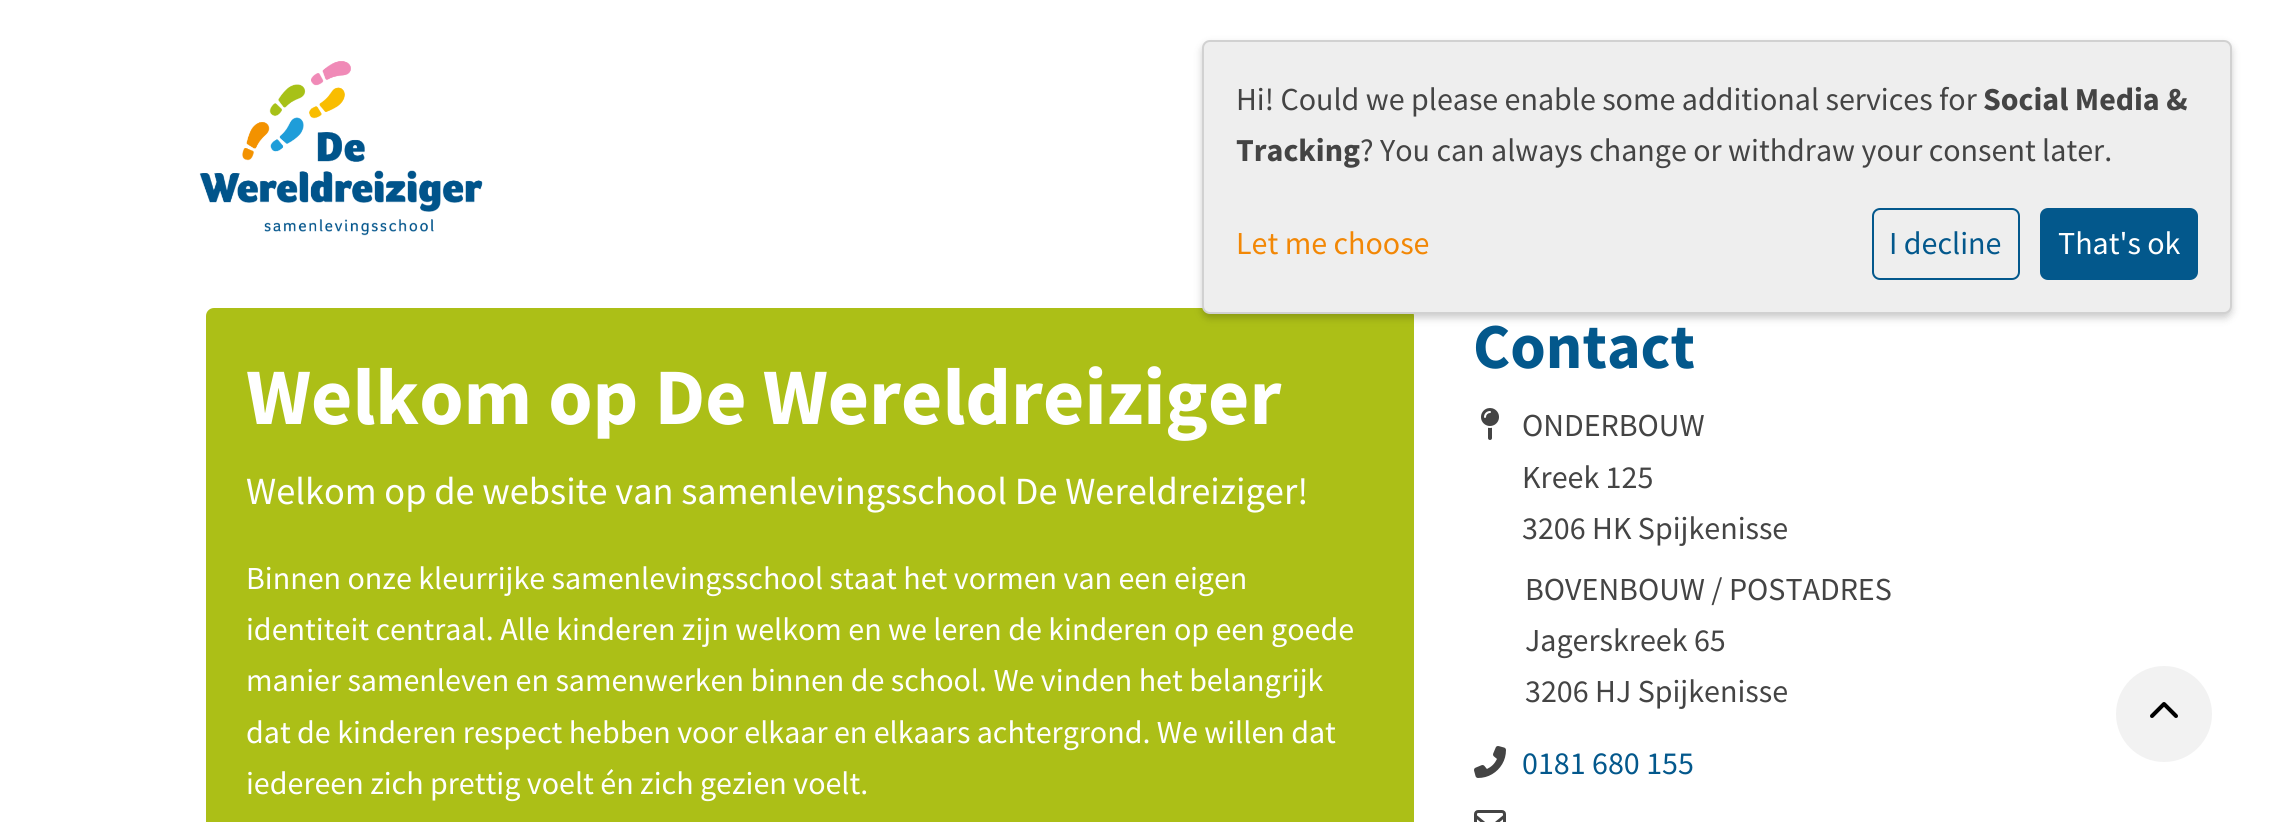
#include <cairo.h>
#include <math.h>
#include <stddef.h>


static void round_rect(cairo_t *cr, double x, double y, double w, double h, double r) {
    cairo_new_sub_path(cr);
    cairo_arc(cr, x + w - r, y + h - r, r, 0, M_PI / 2);
    cairo_arc(cr, x + r, y + h - r, r, M_PI / 2, M_PI);
    cairo_arc(cr, x + r, y + r, r, M_PI, 1.5 * M_PI);
    cairo_arc(cr, x + w - r, y + r, r, 1.5 * M_PI, 2 * M_PI);
    cairo_close_path(cr);
}

static void shadow(cairo_t *cr, double x, double y, double w, double h, double r, double blur, double alpha) {
    cairo_push_group_with_content(cr, CAIRO_CONTENT_ALPHA);
    cairo_set_operator(cr, CAIRO_OPERATOR_SOURCE);
    for (int i = 15; i >= -15 && fmin(w, h) + blur * i / 3 > 0; i -= 2) {
        double e = blur * i / 6;
        cairo_set_source_rgba(cr, 0, 0, 0, alpha * erfc((i - 1) / 8.5) / 2);
        round_rect(cr, x - e, y - e, w + 2 * e, h + 2 * e, fmax(0, fmin(r + e + blur * .6, fmin(w, h) / 2 + e)));
        cairo_fill(cr);
    }
    cairo_pattern_t *soft = cairo_pop_group(cr);
    cairo_mask(cr, soft);
    cairo_pattern_destroy(soft);
}

static void picture(cairo_t *cr, const char *path, double x, double y, double w, double h) {
    cairo_surface_t *image = cairo_image_surface_create_from_png(path);
    cairo_save(cr);
    cairo_set_source_surface(cr, image, x, y);
    cairo_rectangle(cr, x, y, w, h);
    cairo_fill(cr);
    cairo_restore(cr);
    cairo_surface_destroy(image);
}

int main(void) {
    cairo_surface_t *surface = cairo_image_surface_create(CAIRO_FORMAT_RGB24, 2271, 822);
    cairo_t *cr = cairo_create(surface);
    cairo_font_options_t *options = cairo_font_options_create();
    cairo_font_options_set_hint_metrics(options, CAIRO_HINT_METRICS_OFF);
    cairo_font_options_set_hint_style(options, CAIRO_HINT_STYLE_NONE);
    cairo_set_font_options(cr, options);
    cairo_set_miter_limit(cr, 4);
    cairo_set_source_rgb(cr, 1, 1, 1);
    cairo_paint(cr);
    picture(cr, "img1.png", 199, 61, 284, 175);
    cairo_set_source_rgb(cr, 0.675, 0.749, 0.09);
    round_rect(cr, 206, 308, 1208, 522, 8);
    cairo_fill(cr);
    cairo_set_source_rgb(cr, 0, 0, 0);
    shadow(cr, 1202, 44, 1030, 274, 8, 4, 0.2);
    cairo_set_source_rgb(cr, 0.933, 0.933, 0.933);
    round_rect(cr, 1203, 41, 1028, 272, 7);
    cairo_fill_preserve(cr);
    cairo_set_source_rgb(cr, 0.82, 0.82, 0.82);
    cairo_stroke(cr);
    cairo_select_font_face(cr, "Source Sans Pro", CAIRO_FONT_SLANT_NORMAL, CAIRO_FONT_WEIGHT_NORMAL);
    cairo_set_font_size(cr, 32);
    cairo_set_source_rgb(cr, 0.267, 0.267, 0.267);
    cairo_move_to(cr, 1236, 110);
    cairo_show_text(cr, "Hi! Could we please enable some additional services for");
    cairo_select_font_face(cr, "Source Sans Pro", CAIRO_FONT_SLANT_NORMAL, CAIRO_FONT_WEIGHT_BOLD);
    cairo_move_to(cr, 1983, 110);
    cairo_show_text(cr, "Social Media &");
    cairo_move_to(cr, 1236, 161);
    cairo_show_text(cr, "Tracking");
    cairo_select_font_face(cr, "Source Sans Pro", CAIRO_FONT_SLANT_NORMAL, CAIRO_FONT_WEIGHT_NORMAL);
    cairo_move_to(cr, 1360, 161);
    cairo_show_text(cr, "? You can always change or withdraw your consent later.");
    cairo_set_source_rgb(cr, 0.949, 0.529, 0.02);
    cairo_move_to(cr, 1236, 254);
    cairo_show_text(cr, "Let me choose");
    round_rect(cr, 1873, 209, 146, 70, 7);
    cairo_set_source_rgb(cr, 0.012, 0.345, 0.549);
    cairo_stroke(cr);
    cairo_move_to(cr, 1889, 254);
    cairo_show_text(cr, "I decline");
    round_rect(cr, 2040, 208, 158, 72, 8);
    cairo_fill(cr);
    cairo_set_source_rgb(cr, 1, 1, 1);
    cairo_move_to(cr, 2058, 254);
    cairo_show_text(cr, "That's ok");
    cairo_select_font_face(cr, "Source Sans Pro", CAIRO_FONT_SLANT_NORMAL, CAIRO_FONT_WEIGHT_BOLD);
    cairo_set_font_size(cr, 80);
    cairo_move_to(cr, 246, 424);
    cairo_show_text(cr, "Welkom op De Wereldreiziger");
    cairo_select_font_face(cr, "Source Sans Pro", CAIRO_FONT_SLANT_NORMAL, CAIRO_FONT_WEIGHT_NORMAL);
    cairo_set_font_size(cr, 38.4);
    cairo_move_to(cr, 246, 504);
    cairo_show_text(cr, "Welkom op de website van samenlevingsschool De Wereldreiziger!");
    cairo_set_font_size(cr, 32);
    cairo_move_to(cr, 246, 589);
    cairo_show_text(cr, "Binnen onze kleurrijke samenlevingsschool staat het vormen van een eigen");
    cairo_move_to(cr, 246, 640);
    cairo_show_text(cr, "identiteit centraal. Alle kinderen zijn welkom en we leren de kinderen op een goede");
    cairo_move_to(cr, 246, 691);
    cairo_show_text(cr, "manier samenleven en samenwerken binnen de school. We vinden het belangrijk");
    cairo_move_to(cr, 246, 743);
    cairo_show_text(cr, "dat de kinderen respect hebben voor elkaar en elkaars achtergrond. We willen dat");
    cairo_move_to(cr, 246, 794);
    cairo_show_text(cr, "iedereen zich prettig voelt én zich gezien voelt.");
    cairo_select_font_face(cr, "Source Sans Pro", CAIRO_FONT_SLANT_NORMAL, CAIRO_FONT_WEIGHT_BOLD);
    cairo_set_font_size(cr, 64);
    cairo_set_source_rgb(cr, 0.012, 0.345, 0.549);
    cairo_move_to(cr, 1473, 368);
    cairo_show_text(cr, "Contact");
    picture(cr, "img2.png", 1481, 408, 18, 32);
    cairo_select_font_face(cr, "Source Sans Pro", CAIRO_FONT_SLANT_NORMAL, CAIRO_FONT_WEIGHT_NORMAL);
    cairo_set_font_size(cr, 32);
    cairo_set_source_rgb(cr, 0.267, 0.267, 0.267);
    cairo_move_to(cr, 1522, 436);
    cairo_show_text(cr, "ONDERBOUW");
    cairo_move_to(cr, 1522, 488);
    cairo_show_text(cr, "Kreek 125");
    cairo_move_to(cr, 1522, 539);
    cairo_show_text(cr, "3206 HK Spijkenisse");
    cairo_move_to(cr, 1525, 600);
    cairo_show_text(cr, "BOVENBOUW / POSTADRES");
    cairo_move_to(cr, 1525, 651);
    cairo_show_text(cr, "Jagerskreek 65");
    cairo_move_to(cr, 1525, 702);
    cairo_show_text(cr, "3206 HJ Spijkenisse");
    picture(cr, "img3.png", 1474, 746, 32, 32);
    cairo_set_source_rgb(cr, 0.012, 0.345, 0.549);
    cairo_move_to(cr, 1522, 774);
    cairo_show_text(cr, "0181 680 155");
    picture(cr, "img4.png", 1474, 810, 32, 12);
    cairo_set_source_rgb(cr, 0.949, 0.949, 0.949);
    cairo_arc(cr, 2164, 714, 48, 0, 2 * M_PI);
    cairo_fill(cr);
    picture(cr, "img5.png", 2150, 702, 28, 16);
    cairo_surface_write_to_png(surface, "page.png");
    cairo_font_options_destroy(options);
    cairo_destroy(cr);
    cairo_surface_destroy(surface);
    return 0;
}
